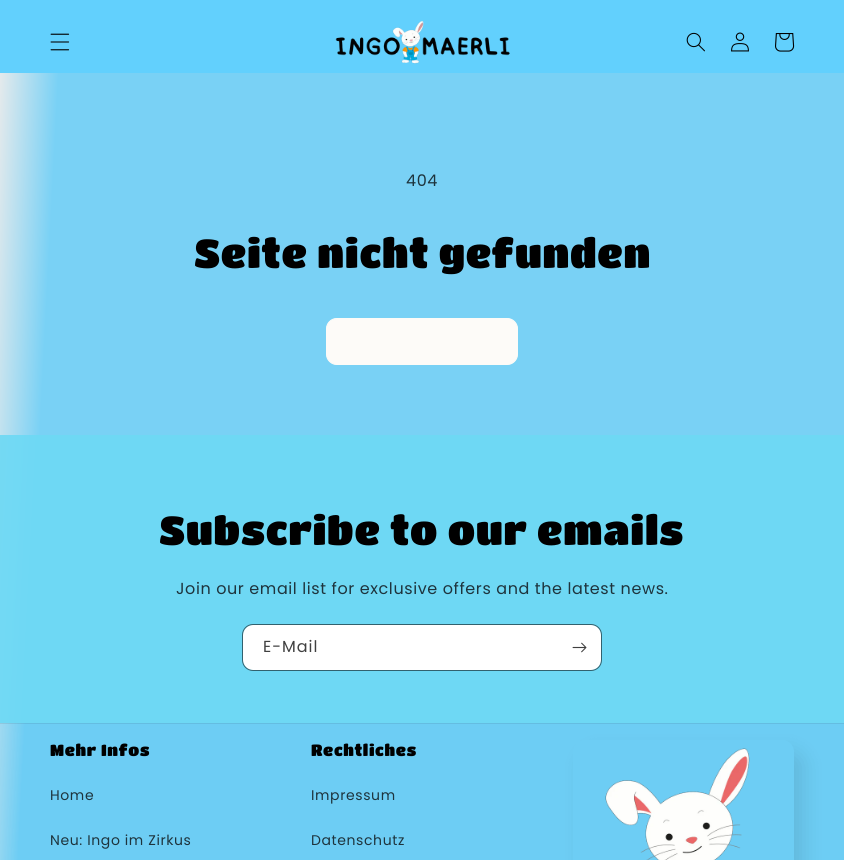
#include <cairo.h>
#include <math.h>
#include <stddef.h>


static void spaced_text(cairo_t *cr, double x, double y, const char *s, double letter, double word) {
    cairo_move_to(cr, x, y);
    while (*s) {
        char ch[5] = {0};
        int n = 0;
        do ch[n++] = *s++; while ((*s & 0xC0) == 0x80);
        cairo_show_text(cr, ch);
        cairo_rel_move_to(cr, letter + word * (*ch == ' '), 0);
    }
}

static void round_rect(cairo_t *cr, double x, double y, double w, double h, double r) {
    cairo_new_sub_path(cr);
    cairo_arc(cr, x + w - r, y + h - r, r, 0, M_PI / 2);
    cairo_arc(cr, x + r, y + h - r, r, M_PI / 2, M_PI);
    cairo_arc(cr, x + r, y + r, r, M_PI, 1.5 * M_PI);
    cairo_arc(cr, x + w - r, y + r, r, 1.5 * M_PI, 2 * M_PI);
    cairo_close_path(cr);
}

static void shadow(cairo_t *cr, double x, double y, double w, double h, double r, double blur, double alpha) {
    cairo_push_group_with_content(cr, CAIRO_CONTENT_ALPHA);
    cairo_set_operator(cr, CAIRO_OPERATOR_SOURCE);
    for (int i = 15; i >= -15 && fmin(w, h) + blur * i / 3 > 0; i -= 2) {
        double e = blur * i / 6;
        cairo_set_source_rgba(cr, 0, 0, 0, alpha * erfc((i - 1) / 8.5) / 2);
        round_rect(cr, x - e, y - e, w + 2 * e, h + 2 * e, fmax(0, fmin(r + e + blur * .6, fmin(w, h) / 2 + e)));
        cairo_fill(cr);
    }
    cairo_pattern_t *soft = cairo_pop_group(cr);
    cairo_mask(cr, soft);
    cairo_pattern_destroy(soft);
}

static void picture(cairo_t *cr, const char *path, double x, double y, double w, double h) {
    cairo_surface_t *image = cairo_image_surface_create_from_png(path);
    cairo_save(cr);
    cairo_set_source_surface(cr, image, x, y);
    cairo_rectangle(cr, x, y, w, h);
    cairo_fill(cr);
    cairo_restore(cr);
    cairo_surface_destroy(image);
}

int main(void) {
    cairo_surface_t *surface = cairo_image_surface_create(CAIRO_FORMAT_RGB24, 844, 860);
    cairo_t *cr = cairo_create(surface);
    cairo_font_options_t *options = cairo_font_options_create();
    cairo_font_options_set_hint_metrics(options, CAIRO_HINT_METRICS_OFF);
    cairo_font_options_set_hint_style(options, CAIRO_HINT_STYLE_NONE);
    cairo_set_font_options(cr, options);
    cairo_set_miter_limit(cr, 4);
    cairo_pattern_t *gradient;
    cairo_set_source_rgb(cr, 1, 1, 1);
    cairo_paint(cr);
    gradient = cairo_pattern_create_linear(-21, 407, 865, 453);
    cairo_pattern_add_color_stop_rgba(gradient, 0, 0.922, 0.922, 0.922, 1);
    cairo_pattern_add_color_stop_rgba(gradient, 0.07, 0.475, 0.82, 0.961, 1);
    cairo_set_source(cr, gradient);
    cairo_pattern_destroy(gradient);
    cairo_rectangle(cr, 0, 73, 844, 787);
    cairo_fill(cr);
    gradient = cairo_pattern_create_linear(-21, 407, 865, 453);
    cairo_pattern_add_color_stop_rgba(gradient, 0, 0.467, 0.855, 0.953, 1);
    cairo_pattern_add_color_stop_rgba(gradient, 0.07, 0.431, 0.847, 0.957, 1);
    cairo_set_source(cr, gradient);
    cairo_pattern_destroy(gradient);
    cairo_rectangle(cr, 0, 435, 844, 288);
    cairo_fill(cr);
    cairo_set_source_rgb(cr, 0.384, 0.816, 0.992);
    cairo_rectangle(cr, 0, 0, 844, 73);
    cairo_fill(cr);
    picture(cr, "img1.png", 50, 33, 20, 18);
    picture(cr, "img2.png", 335, 21, 175, 43);
    picture(cr, "img3.png", 686, 32, 19, 20);
    picture(cr, "img4.png", 731, 32, 18, 20);
    picture(cr, "img5.png", 775, 33, 20, 19);
    cairo_select_font_face(cr, "Poppins", CAIRO_FONT_SLANT_NORMAL, CAIRO_FONT_WEIGHT_NORMAL);
    cairo_set_font_size(cr, 16);
    cairo_set_source_rgb(cr, 0.118, 0.204, 0.239);
    spaced_text(cr, 406, 186, "404", 0.6, 0);
    cairo_select_font_face(cr, "Titan One", CAIRO_FONT_SLANT_NORMAL, CAIRO_FONT_WEIGHT_NORMAL);
    cairo_set_font_size(cr, 40);
    cairo_set_source_rgb(cr, 0, 0, 0);
    spaced_text(cr, 194, 268, "Seite nicht gefunden", 0.6, 0);
    cairo_set_source_rgb(cr, 0.992, 0.984, 0.969);
    round_rect(cr, 326.5, 318.5, 191, 46, 10.5);
    cairo_fill_preserve(cr);
    cairo_set_line_width(cr, 1);
    cairo_stroke(cr);
    round_rect(cr, 326.5, 318.5, 191, 46, 10.5);
    cairo_set_source_rgba(cr, 0.992, 0.984, 0.969, 0.45);
    cairo_stroke(cr);
    cairo_set_source_rgb(cr, 0, 0, 0);
    spaced_text(cr, 159, 545, "Subscribe to our emails", 0.6, 0);
    cairo_select_font_face(cr, "Poppins", CAIRO_FONT_SLANT_NORMAL, CAIRO_FONT_WEIGHT_NORMAL);
    cairo_set_font_size(cr, 16);
    cairo_set_source_rgb(cr, 0.118, 0.204, 0.239);
    spaced_text(cr, 176, 594, "Join our email list for exclusive offers and the latest news.", 0.6, 0);
    cairo_set_source_rgb(cr, 1, 1, 1);
    round_rect(cr, 243, 625, 358, 45, 10);
    cairo_fill(cr);
    round_rect(cr, 242.5, 624.5, 359, 46, 10.5);
    cairo_set_source_rgba(cr, 0, 0, 0, 0.55);
    cairo_stroke(cr);
    cairo_set_source_rgb(cr, 0.251, 0.251, 0.251);
    spaced_text(cr, 263, 652, "E-Mail", 1, 0);
    picture(cr, "img6.png", 572, 642, 15, 11);
    gradient = cairo_pattern_create_linear(-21, 407, 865, 453);
    cairo_pattern_add_color_stop_rgba(gradient, 0, 0.922, 0.922, 0.922, 1);
    cairo_pattern_add_color_stop_rgba(gradient, 0.07, 0.427, 0.804, 0.957, 0.92);
    cairo_set_source(cr, gradient);
    cairo_pattern_destroy(gradient);
    cairo_rectangle(cr, 0, 723, 844, 137);
    cairo_fill(cr);
    cairo_set_source_rgba(cr, 0, 0, 0, 0.08);
    cairo_rectangle(cr, 0, 723, 844, 1);
    cairo_fill(cr);
    cairo_select_font_face(cr, "Titan One", CAIRO_FONT_SLANT_NORMAL, CAIRO_FONT_WEIGHT_NORMAL);
    cairo_set_source_rgb(cr, 0, 0, 0);
    spaced_text(cr, 50, 756, "Mehr Infos", 0.6, 0);
    cairo_select_font_face(cr, "Poppins", CAIRO_FONT_SLANT_NORMAL, CAIRO_FONT_WEIGHT_NORMAL);
    cairo_set_font_size(cr, 14);
    cairo_set_source_rgb(cr, 0.118, 0.204, 0.239);
    spaced_text(cr, 50, 800, "Home", 0.6, 0);
    spaced_text(cr, 50, 845, "Neu: Ingo im Zirkus", 0.6, 0);
    cairo_select_font_face(cr, "Titan One", CAIRO_FONT_SLANT_NORMAL, CAIRO_FONT_WEIGHT_NORMAL);
    cairo_set_font_size(cr, 16);
    cairo_set_source_rgb(cr, 0, 0, 0);
    spaced_text(cr, 311, 756, "Rechtliches", 0.6, 0);
    cairo_select_font_face(cr, "Poppins", CAIRO_FONT_SLANT_NORMAL, CAIRO_FONT_WEIGHT_NORMAL);
    cairo_set_font_size(cr, 14);
    cairo_set_source_rgb(cr, 0.118, 0.204, 0.239);
    spaced_text(cr, 311, 800, "Impressum", 0.6, 0);
    spaced_text(cr, 311, 845, "Datenschutz", 0.6, 0);
    cairo_save(cr);
    cairo_set_fill_rule(cr, CAIRO_FILL_RULE_EVEN_ODD);
    cairo_new_path(cr);
    cairo_move_to(cr, 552, 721);
    cairo_line_to(cr, 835, 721);
    cairo_line_to(cr, 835, 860);
    cairo_line_to(cr, 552, 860);
    cairo_close_path(cr);
    cairo_move_to(cr, 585, 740);
    cairo_line_to(cr, 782, 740);
    cairo_curve_to(cr, 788.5, 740, 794, 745.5, 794, 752);
    cairo_line_to(cr, 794, 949);
    cairo_curve_to(cr, 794, 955.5, 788.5, 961, 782, 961);
    cairo_line_to(cr, 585, 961);
    cairo_curve_to(cr, 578.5, 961, 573, 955.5, 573, 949);
    cairo_line_to(cr, 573, 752);
    cairo_curve_to(cr, 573, 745.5, 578.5, 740, 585, 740);
    cairo_close_path(cr);
    cairo_clip(cr);
    cairo_set_source_rgb(cr, 0, 0, 0);
    shadow(cr, 583, 752, 221, 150, 12, 10, 0.1);
    cairo_restore(cr);
    picture(cr, "img7.png", 605, 748, 145, 112);
    cairo_surface_write_to_png(surface, "page.png");
    cairo_font_options_destroy(options);
    cairo_destroy(cr);
    cairo_surface_destroy(surface);
    return 0;
}
